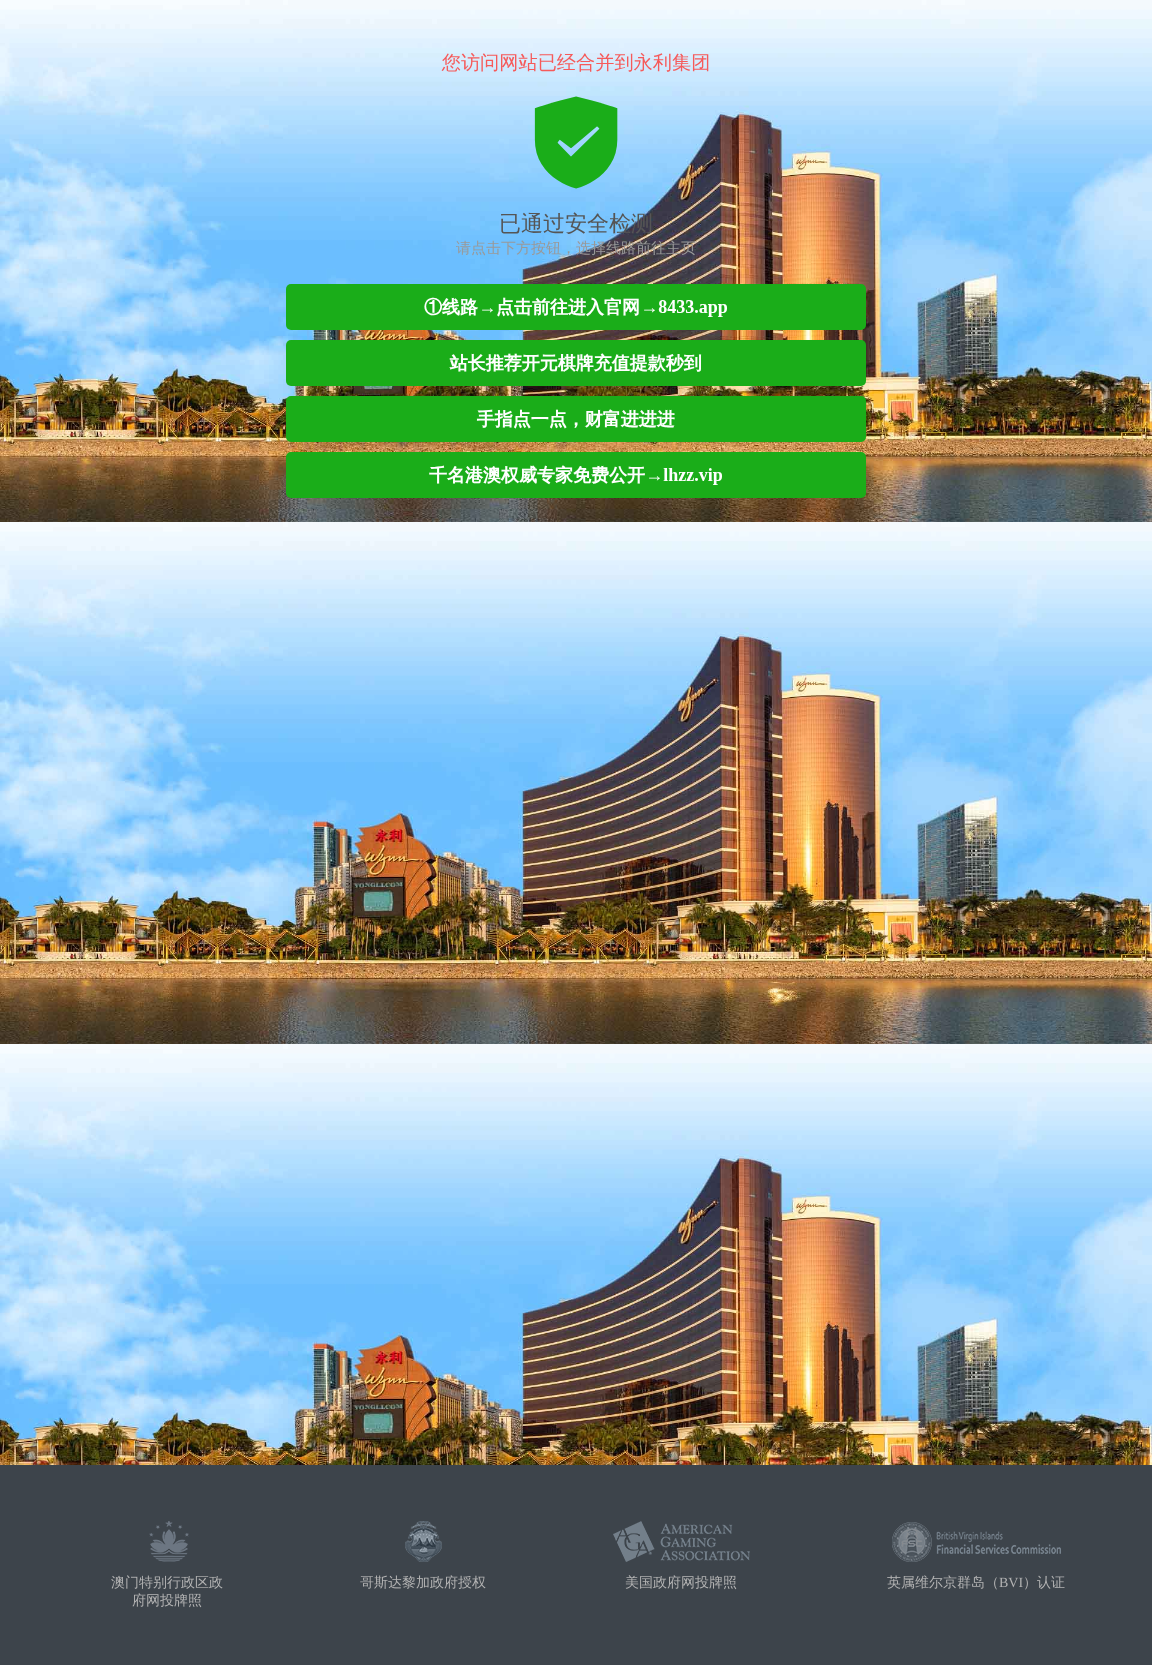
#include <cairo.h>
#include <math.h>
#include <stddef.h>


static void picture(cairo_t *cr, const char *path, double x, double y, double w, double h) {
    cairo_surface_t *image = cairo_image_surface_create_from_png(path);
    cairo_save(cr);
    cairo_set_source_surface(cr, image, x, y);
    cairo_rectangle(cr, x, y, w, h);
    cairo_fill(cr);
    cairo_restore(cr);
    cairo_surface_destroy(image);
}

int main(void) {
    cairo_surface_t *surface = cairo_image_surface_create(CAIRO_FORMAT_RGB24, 1152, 1665);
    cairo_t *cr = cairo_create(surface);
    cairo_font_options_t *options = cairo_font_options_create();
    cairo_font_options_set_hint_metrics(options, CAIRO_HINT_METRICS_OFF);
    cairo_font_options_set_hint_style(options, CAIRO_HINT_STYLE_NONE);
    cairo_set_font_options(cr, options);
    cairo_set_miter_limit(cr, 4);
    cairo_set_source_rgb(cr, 1, 1, 1);
    cairo_paint(cr);
    picture(cr, "img1.png", 0, 0, 1152, 1465);
    picture(cr, "img2.png", 286, 52, 580, 446);
    cairo_set_source_rgb(cr, 0.239, 0.267, 0.294);
    cairo_rectangle(cr, 0, 1465, 1152, 200);
    cairo_fill(cr);
    picture(cr, "img3.png", 149, 1521, 40, 41);
    cairo_select_font_face(cr, "WenQuanYi Zen Hei Medium", CAIRO_FONT_SLANT_NORMAL, CAIRO_FONT_WEIGHT_NORMAL);
    cairo_set_font_size(cr, 14);
    cairo_set_source_rgb(cr, 0.706, 0.706, 0.706);
    cairo_move_to(cr, 111, 1587);
    cairo_show_text(cr, "澳门特别行政区政");
    cairo_move_to(cr, 132, 1605);
    cairo_show_text(cr, "府网投牌照");
    picture(cr, "img4.png", 405, 1521, 37, 41);
    cairo_move_to(cr, 360, 1587);
    cairo_show_text(cr, "哥斯达黎加政府授权");
    picture(cr, "img5.png", 613, 1521, 137, 41);
    cairo_move_to(cr, 625, 1587);
    cairo_show_text(cr, "美国政府网投牌照");
    picture(cr, "img6.png", 892, 1522, 169, 40);
    cairo_move_to(cr, 887, 1587);
    cairo_show_text(cr, "英属维尔京群岛（");
    cairo_select_font_face(cr, "Liberation Serif", CAIRO_FONT_SLANT_NORMAL, CAIRO_FONT_WEIGHT_NORMAL);
    cairo_move_to(cr, 999, 1587);
    cairo_show_text(cr, "BVI");
    cairo_select_font_face(cr, "WenQuanYi Zen Hei Medium", CAIRO_FONT_SLANT_NORMAL, CAIRO_FONT_WEIGHT_NORMAL);
    cairo_move_to(cr, 1023, 1587);
    cairo_show_text(cr, "）认证");
    cairo_surface_write_to_png(surface, "page.png");
    cairo_font_options_destroy(options);
    cairo_destroy(cr);
    cairo_surface_destroy(surface);
    return 0;
}
